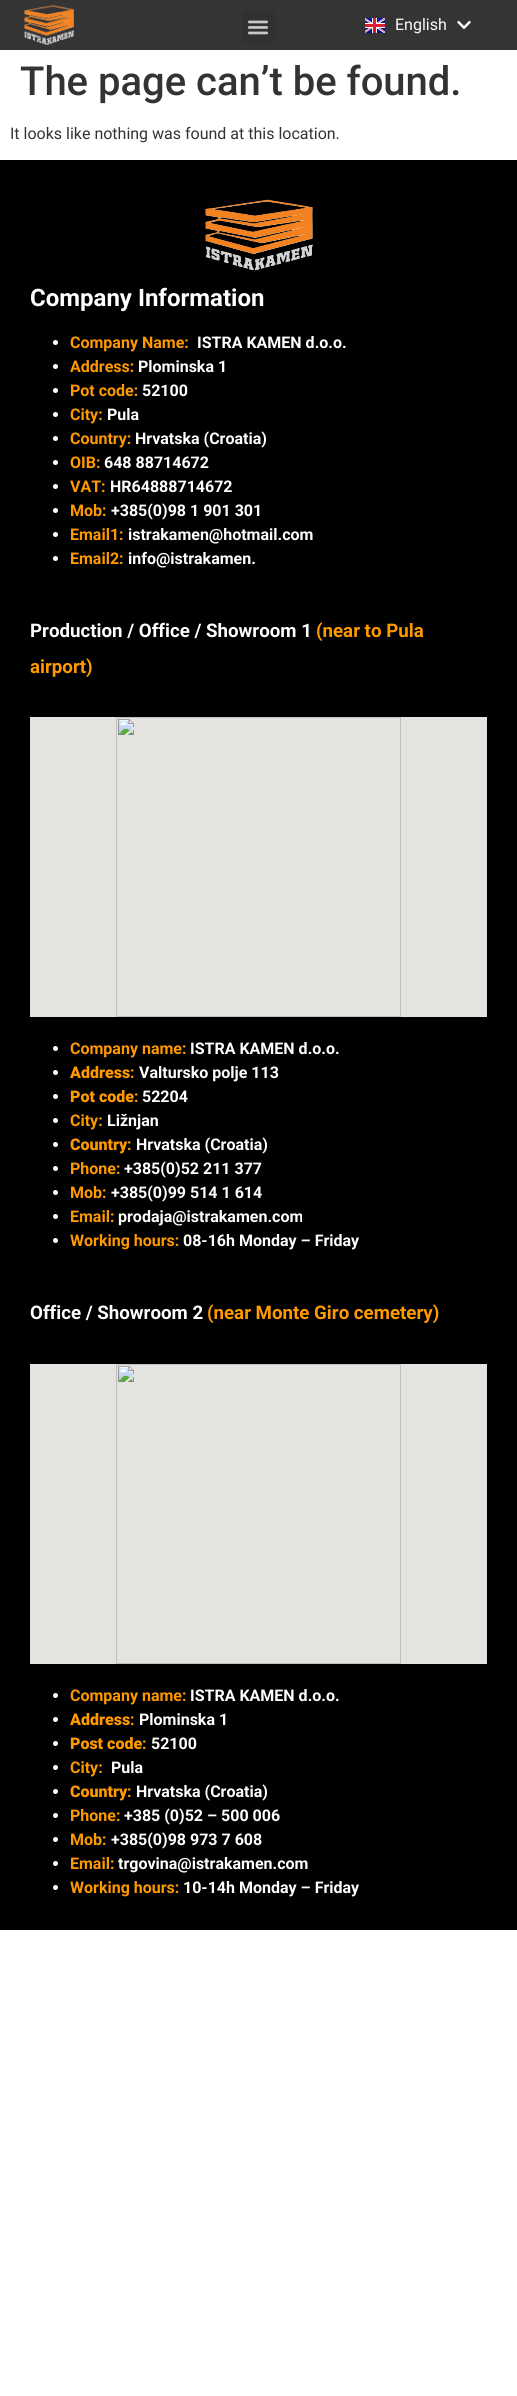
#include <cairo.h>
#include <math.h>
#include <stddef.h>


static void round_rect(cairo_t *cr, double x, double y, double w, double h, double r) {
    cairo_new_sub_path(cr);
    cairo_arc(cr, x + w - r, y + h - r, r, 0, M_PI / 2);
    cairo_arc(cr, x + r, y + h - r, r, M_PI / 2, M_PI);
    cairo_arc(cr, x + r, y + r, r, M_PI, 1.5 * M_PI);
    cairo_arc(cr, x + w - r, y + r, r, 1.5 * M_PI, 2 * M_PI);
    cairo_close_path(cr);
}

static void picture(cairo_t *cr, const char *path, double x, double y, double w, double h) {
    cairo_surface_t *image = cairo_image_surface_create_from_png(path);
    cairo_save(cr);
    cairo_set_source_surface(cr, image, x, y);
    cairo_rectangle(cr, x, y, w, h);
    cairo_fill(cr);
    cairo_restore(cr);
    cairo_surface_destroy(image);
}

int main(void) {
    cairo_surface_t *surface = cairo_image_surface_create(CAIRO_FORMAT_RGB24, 517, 2396);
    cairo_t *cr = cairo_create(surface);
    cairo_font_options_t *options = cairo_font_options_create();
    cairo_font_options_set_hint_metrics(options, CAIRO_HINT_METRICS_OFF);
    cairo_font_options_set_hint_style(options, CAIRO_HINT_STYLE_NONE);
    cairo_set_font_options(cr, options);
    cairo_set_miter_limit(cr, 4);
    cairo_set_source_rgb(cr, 1, 1, 1);
    cairo_paint(cr);
    cairo_set_source_rgb(cr, 0.204, 0.204, 0.204);
    cairo_rectangle(cr, 0, 0, 517, 50);
    cairo_fill(cr);
    picture(cr, "img1.png", 23, 4, 51, 41);
    cairo_set_source_rgb(cr, 0.192, 0.192, 0.192);
    round_rect(cr, 242, 10, 33, 33, 3);
    cairo_fill(cr);
    picture(cr, "img2.png", 247, 20, 21, 15);
    picture(cr, "img3.png", 365, 18, 20, 15);
    cairo_select_font_face(cr, "Roboto", CAIRO_FONT_SLANT_NORMAL, CAIRO_FONT_WEIGHT_NORMAL);
    cairo_set_font_size(cr, 16);
    cairo_set_source_rgb(cr, 1, 0.976, 0.976);
    cairo_move_to(cr, 395, 30);
    cairo_show_text(cr, "English");
    picture(cr, "img4.png", 457, 20, 14, 10);
    cairo_select_font_face(cr, "Roboto Medium", CAIRO_FONT_SLANT_NORMAL, CAIRO_FONT_WEIGHT_NORMAL);
    cairo_set_font_size(cr, 40);
    cairo_set_source_rgb(cr, 0.2, 0.2, 0.2);
    cairo_move_to(cr, 20, 95);
    cairo_show_text(cr, "The page can’t be found.");
    cairo_select_font_face(cr, "Roboto", CAIRO_FONT_SLANT_NORMAL, CAIRO_FONT_WEIGHT_NORMAL);
    cairo_set_font_size(cr, 16);
    cairo_move_to(cr, 10, 139);
    cairo_show_text(cr, "It looks like nothing was found at this location.");
    cairo_set_source_rgb(cr, 0, 0, 0);
    cairo_rectangle(cr, 0, 160, 517, 1770);
    cairo_fill(cr);
    picture(cr, "img5.png", 205, 199, 108, 72);
    cairo_select_font_face(cr, "Roboto", CAIRO_FONT_SLANT_NORMAL, CAIRO_FONT_WEIGHT_BOLD);
    cairo_set_font_size(cr, 24);
    cairo_set_source_rgb(cr, 1, 1, 1);
    cairo_move_to(cr, 30, 306);
    cairo_show_text(cr, "Company Information");
    cairo_new_path(cr);
    cairo_arc(cr, 55.5, 342.5, 2.5, 0, 2 * M_PI);
    cairo_fill(cr);
    cairo_set_font_size(cr, 16);
    cairo_set_source_rgb(cr, 1, 0.6, 0);
    cairo_move_to(cr, 70, 348);
    cairo_show_text(cr, "Company Name:");
    cairo_set_source_rgb(cr, 1, 1, 1);
    cairo_move_to(cr, 197, 348);
    cairo_show_text(cr, "ISTRA KAMEN d.o.o.");
    cairo_new_path(cr);
    cairo_arc(cr, 55.5, 366.5, 2.5, 0, 2 * M_PI);
    cairo_fill(cr);
    cairo_set_source_rgb(cr, 1, 0.6, 0);
    cairo_move_to(cr, 70, 372);
    cairo_show_text(cr, "Address:");
    cairo_set_source_rgb(cr, 1, 1, 1);
    cairo_move_to(cr, 138, 372);
    cairo_show_text(cr, "Plominska 1");
    cairo_new_path(cr);
    cairo_arc(cr, 55.5, 390.5, 2.5, 0, 2 * M_PI);
    cairo_fill(cr);
    cairo_set_source_rgb(cr, 1, 0.6, 0);
    cairo_move_to(cr, 70, 396);
    cairo_show_text(cr, "Pot code:");
    cairo_set_source_rgb(cr, 1, 1, 1);
    cairo_move_to(cr, 142, 396);
    cairo_show_text(cr, "52100");
    cairo_new_path(cr);
    cairo_arc(cr, 55.5, 414.5, 2.5, 0, 2 * M_PI);
    cairo_fill(cr);
    cairo_set_source_rgb(cr, 1, 0.6, 0);
    cairo_move_to(cr, 70, 420);
    cairo_show_text(cr, "City:");
    cairo_set_source_rgb(cr, 1, 1, 1);
    cairo_move_to(cr, 107, 420);
    cairo_show_text(cr, "Pula");
    cairo_new_path(cr);
    cairo_arc(cr, 55.5, 438.5, 2.5, 0, 2 * M_PI);
    cairo_fill(cr);
    cairo_set_source_rgb(cr, 1, 0.6, 0);
    cairo_move_to(cr, 70, 444);
    cairo_show_text(cr, "Country:");
    cairo_set_source_rgb(cr, 1, 1, 1);
    cairo_move_to(cr, 135, 444);
    cairo_show_text(cr, "Hrvatska (Croatia)");
    cairo_new_path(cr);
    cairo_arc(cr, 55.5, 462.5, 2.5, 0, 2 * M_PI);
    cairo_fill(cr);
    cairo_set_source_rgb(cr, 1, 0.6, 0);
    cairo_move_to(cr, 70, 468);
    cairo_show_text(cr, "OIB:");
    cairo_set_source_rgb(cr, 1, 1, 1);
    cairo_move_to(cr, 104, 468);
    cairo_show_text(cr, "648 88714672");
    cairo_new_path(cr);
    cairo_arc(cr, 55.5, 486.5, 2.5, 0, 2 * M_PI);
    cairo_fill(cr);
    cairo_set_source_rgb(cr, 1, 0.6, 0);
    cairo_move_to(cr, 70, 492);
    cairo_show_text(cr, "VAT:");
    cairo_set_source_rgb(cr, 1, 1, 1);
    cairo_move_to(cr, 110, 492);
    cairo_show_text(cr, "HR64888714672");
    cairo_new_path(cr);
    cairo_arc(cr, 55.5, 510.5, 2.5, 0, 2 * M_PI);
    cairo_fill(cr);
    cairo_set_source_rgb(cr, 1, 0.6, 0);
    cairo_move_to(cr, 70, 516);
    cairo_show_text(cr, "Mob:");
    cairo_set_source_rgb(cr, 1, 1, 1);
    cairo_move_to(cr, 111, 516);
    cairo_show_text(cr, "+385(0)98 1 901 301");
    cairo_new_path(cr);
    cairo_arc(cr, 55.5, 534.5, 2.5, 0, 2 * M_PI);
    cairo_fill(cr);
    cairo_set_source_rgb(cr, 1, 0.6, 0);
    cairo_move_to(cr, 70, 540);
    cairo_show_text(cr, "Email1:");
    cairo_set_source_rgb(cr, 1, 1, 1);
    cairo_move_to(cr, 128, 540);
    cairo_show_text(cr, "istrakamen@hotmail.com");
    cairo_new_path(cr);
    cairo_arc(cr, 55.5, 558.5, 2.5, 0, 2 * M_PI);
    cairo_fill(cr);
    cairo_set_source_rgb(cr, 1, 0.6, 0);
    cairo_move_to(cr, 70, 564);
    cairo_show_text(cr, "Email2:");
    cairo_set_source_rgb(cr, 1, 1, 1);
    cairo_move_to(cr, 128, 564);
    cairo_show_text(cr, "info@istrakamen.");
    cairo_set_font_size(cr, 18.7);
    cairo_move_to(cr, 30, 637);
    cairo_show_text(cr, "Production / Office / Showroom 1");
    cairo_set_source_rgb(cr, 1, 0.6, 0);
    cairo_move_to(cr, 316, 637);
    cairo_show_text(cr, "(near to Pula");
    cairo_move_to(cr, 30, 673);
    cairo_show_text(cr, "airport)");
    picture(cr, "img6.png", 30, 717, 457, 300);
    cairo_set_source_rgb(cr, 1, 1, 1);
    cairo_arc(cr, 55.5, 1048.5, 2.5, 0, 2 * M_PI);
    cairo_fill(cr);
    cairo_set_font_size(cr, 16);
    cairo_set_source_rgb(cr, 1, 0.6, 0);
    cairo_move_to(cr, 70, 1054);
    cairo_show_text(cr, "Company name:");
    cairo_set_source_rgb(cr, 1, 1, 1);
    cairo_move_to(cr, 190, 1054);
    cairo_show_text(cr, "ISTRA KAMEN d.o.o.");
    cairo_new_path(cr);
    cairo_arc(cr, 55.5, 1072.5, 2.5, 0, 2 * M_PI);
    cairo_fill(cr);
    cairo_select_font_face(cr, "Roboto Black", CAIRO_FONT_SLANT_NORMAL, CAIRO_FONT_WEIGHT_NORMAL);
    cairo_set_source_rgb(cr, 1, 0.6, 0);
    cairo_move_to(cr, 70, 1078);
    cairo_show_text(cr, "Address");
    cairo_select_font_face(cr, "Roboto", CAIRO_FONT_SLANT_NORMAL, CAIRO_FONT_WEIGHT_BOLD);
    cairo_move_to(cr, 130, 1078);
    cairo_show_text(cr, ":");
    cairo_set_source_rgb(cr, 1, 1, 1);
    cairo_move_to(cr, 139, 1078);
    cairo_show_text(cr, "Valtursko polje 113");
    cairo_new_path(cr);
    cairo_arc(cr, 55.5, 1096.5, 2.5, 0, 2 * M_PI);
    cairo_fill(cr);
    cairo_select_font_face(cr, "Roboto Black", CAIRO_FONT_SLANT_NORMAL, CAIRO_FONT_WEIGHT_NORMAL);
    cairo_set_source_rgb(cr, 1, 0.6, 0);
    cairo_move_to(cr, 70, 1102);
    cairo_show_text(cr, "Pot code");
    cairo_select_font_face(cr, "Roboto", CAIRO_FONT_SLANT_NORMAL, CAIRO_FONT_WEIGHT_BOLD);
    cairo_move_to(cr, 134, 1102);
    cairo_show_text(cr, ":");
    cairo_set_source_rgb(cr, 1, 1, 1);
    cairo_move_to(cr, 142, 1102);
    cairo_show_text(cr, "52204");
    cairo_new_path(cr);
    cairo_arc(cr, 55.5, 1120.5, 2.5, 0, 2 * M_PI);
    cairo_fill(cr);
    cairo_set_source_rgb(cr, 1, 0.6, 0);
    cairo_move_to(cr, 70, 1126);
    cairo_show_text(cr, "City:");
    cairo_set_source_rgb(cr, 1, 1, 1);
    cairo_move_to(cr, 107, 1126);
    cairo_show_text(cr, "Ližnjan");
    cairo_new_path(cr);
    cairo_arc(cr, 55.5, 1144.5, 2.5, 0, 2 * M_PI);
    cairo_fill(cr);
    cairo_select_font_face(cr, "Roboto Black", CAIRO_FONT_SLANT_NORMAL, CAIRO_FONT_WEIGHT_NORMAL);
    cairo_set_source_rgb(cr, 1, 0.6, 0);
    cairo_move_to(cr, 70, 1150);
    cairo_show_text(cr, "Country");
    cairo_select_font_face(cr, "Roboto", CAIRO_FONT_SLANT_NORMAL, CAIRO_FONT_WEIGHT_BOLD);
    cairo_move_to(cr, 127, 1150);
    cairo_show_text(cr, ":");
    cairo_set_source_rgb(cr, 1, 1, 1);
    cairo_move_to(cr, 136, 1150);
    cairo_show_text(cr, "Hrvatska (Croatia)");
    cairo_new_path(cr);
    cairo_arc(cr, 55.5, 1168.5, 2.5, 0, 2 * M_PI);
    cairo_fill(cr);
    cairo_set_source_rgb(cr, 1, 0.6, 0);
    cairo_move_to(cr, 70, 1174);
    cairo_show_text(cr, "Phone:");
    cairo_set_source_rgb(cr, 1, 1, 1);
    cairo_move_to(cr, 124, 1174);
    cairo_show_text(cr, "+385(0)52 211 377");
    cairo_new_path(cr);
    cairo_arc(cr, 55.5, 1192.5, 2.5, 0, 2 * M_PI);
    cairo_fill(cr);
    cairo_set_source_rgb(cr, 1, 0.6, 0);
    cairo_move_to(cr, 70, 1198);
    cairo_show_text(cr, "Mob:");
    cairo_set_source_rgb(cr, 1, 1, 1);
    cairo_move_to(cr, 111, 1198);
    cairo_show_text(cr, "+385(0)99 514 1 614");
    cairo_new_path(cr);
    cairo_arc(cr, 55.5, 1216.5, 2.5, 0, 2 * M_PI);
    cairo_fill(cr);
    cairo_set_source_rgb(cr, 1, 0.6, 0);
    cairo_move_to(cr, 70, 1222);
    cairo_show_text(cr, "Email:");
    cairo_set_source_rgb(cr, 1, 1, 1);
    cairo_move_to(cr, 118, 1222);
    cairo_show_text(cr, "prodaja@istrakamen.com");
    cairo_new_path(cr);
    cairo_arc(cr, 55.5, 1240.5, 2.5, 0, 2 * M_PI);
    cairo_fill(cr);
    cairo_set_source_rgb(cr, 1, 0.6, 0);
    cairo_move_to(cr, 70, 1246);
    cairo_show_text(cr, "Working hours:");
    cairo_set_source_rgb(cr, 1, 1, 1);
    cairo_move_to(cr, 183, 1246);
    cairo_show_text(cr, "08-16h Monday – Friday");
    cairo_set_font_size(cr, 18.7);
    cairo_move_to(cr, 30, 1319);
    cairo_show_text(cr, "Office / Showroom 2");
    cairo_set_source_rgb(cr, 1, 0.6, 0);
    cairo_move_to(cr, 207, 1319);
    cairo_show_text(cr, "(near Monte Giro cemetery)");
    picture(cr, "img6.png", 30, 1364, 457, 300);
    cairo_set_source_rgb(cr, 1, 1, 1);
    cairo_arc(cr, 55.5, 1695.5, 2.5, 0, 2 * M_PI);
    cairo_fill(cr);
    cairo_set_font_size(cr, 16);
    cairo_set_source_rgb(cr, 1, 0.6, 0);
    cairo_move_to(cr, 70, 1701);
    cairo_show_text(cr, "Company name:");
    cairo_set_source_rgb(cr, 1, 1, 1);
    cairo_move_to(cr, 190, 1701);
    cairo_show_text(cr, "ISTRA KAMEN d.o.o.");
    cairo_new_path(cr);
    cairo_arc(cr, 55.5, 1719.5, 2.5, 0, 2 * M_PI);
    cairo_fill(cr);
    cairo_select_font_face(cr, "Roboto Black", CAIRO_FONT_SLANT_NORMAL, CAIRO_FONT_WEIGHT_NORMAL);
    cairo_set_source_rgb(cr, 1, 0.6, 0);
    cairo_move_to(cr, 70, 1725);
    cairo_show_text(cr, "Address");
    cairo_select_font_face(cr, "Roboto", CAIRO_FONT_SLANT_NORMAL, CAIRO_FONT_WEIGHT_BOLD);
    cairo_move_to(cr, 130, 1725);
    cairo_show_text(cr, ":");
    cairo_set_source_rgb(cr, 1, 1, 1);
    cairo_move_to(cr, 139, 1725);
    cairo_show_text(cr, "Plominska 1");
    cairo_new_path(cr);
    cairo_arc(cr, 55.5, 1743.5, 2.5, 0, 2 * M_PI);
    cairo_fill(cr);
    cairo_select_font_face(cr, "Roboto Black", CAIRO_FONT_SLANT_NORMAL, CAIRO_FONT_WEIGHT_NORMAL);
    cairo_set_source_rgb(cr, 1, 0.6, 0);
    cairo_move_to(cr, 70, 1749);
    cairo_show_text(cr, "Post code");
    cairo_select_font_face(cr, "Roboto", CAIRO_FONT_SLANT_NORMAL, CAIRO_FONT_WEIGHT_BOLD);
    cairo_move_to(cr, 142, 1749);
    cairo_show_text(cr, ":");
    cairo_set_source_rgb(cr, 1, 1, 1);
    cairo_move_to(cr, 151, 1749);
    cairo_show_text(cr, "52100");
    cairo_new_path(cr);
    cairo_arc(cr, 55.5, 1767.5, 2.5, 0, 2 * M_PI);
    cairo_fill(cr);
    cairo_set_source_rgb(cr, 1, 0.6, 0);
    cairo_move_to(cr, 70, 1773);
    cairo_show_text(cr, "City:");
    cairo_set_source_rgb(cr, 1, 1, 1);
    cairo_move_to(cr, 111, 1773);
    cairo_show_text(cr, "Pula");
    cairo_new_path(cr);
    cairo_arc(cr, 55.5, 1791.5, 2.5, 0, 2 * M_PI);
    cairo_fill(cr);
    cairo_select_font_face(cr, "Roboto Black", CAIRO_FONT_SLANT_NORMAL, CAIRO_FONT_WEIGHT_NORMAL);
    cairo_set_source_rgb(cr, 1, 0.6, 0);
    cairo_move_to(cr, 70, 1797);
    cairo_show_text(cr, "Country");
    cairo_select_font_face(cr, "Roboto", CAIRO_FONT_SLANT_NORMAL, CAIRO_FONT_WEIGHT_BOLD);
    cairo_move_to(cr, 127, 1797);
    cairo_show_text(cr, ":");
    cairo_set_source_rgb(cr, 1, 1, 1);
    cairo_move_to(cr, 136, 1797);
    cairo_show_text(cr, "Hrvatska (Croatia)");
    cairo_new_path(cr);
    cairo_arc(cr, 55.5, 1815.5, 2.5, 0, 2 * M_PI);
    cairo_fill(cr);
    cairo_set_source_rgb(cr, 1, 0.6, 0);
    cairo_move_to(cr, 70, 1821);
    cairo_show_text(cr, "Phone:");
    cairo_set_source_rgb(cr, 1, 1, 1);
    cairo_move_to(cr, 124, 1821);
    cairo_show_text(cr, "+385 (0)52 – 500 006");
    cairo_new_path(cr);
    cairo_arc(cr, 55.5, 1839.5, 2.5, 0, 2 * M_PI);
    cairo_fill(cr);
    cairo_set_source_rgb(cr, 1, 0.6, 0);
    cairo_move_to(cr, 70, 1845);
    cairo_show_text(cr, "Mob:");
    cairo_set_source_rgb(cr, 1, 1, 1);
    cairo_move_to(cr, 111, 1845);
    cairo_show_text(cr, "+385(0)98 973 7 608");
    cairo_new_path(cr);
    cairo_arc(cr, 55.5, 1863.5, 2.5, 0, 2 * M_PI);
    cairo_fill(cr);
    cairo_set_source_rgb(cr, 1, 0.6, 0);
    cairo_move_to(cr, 70, 1869);
    cairo_show_text(cr, "Email:");
    cairo_set_source_rgb(cr, 1, 1, 1);
    cairo_move_to(cr, 118, 1869);
    cairo_show_text(cr, "trgovina@istrakamen.com");
    cairo_new_path(cr);
    cairo_arc(cr, 55.5, 1887.5, 2.5, 0, 2 * M_PI);
    cairo_fill(cr);
    cairo_set_source_rgb(cr, 1, 0.6, 0);
    cairo_move_to(cr, 70, 1893);
    cairo_show_text(cr, "Working hours:");
    cairo_set_source_rgb(cr, 1, 1, 1);
    cairo_move_to(cr, 183, 1893);
    cairo_show_text(cr, "10-14h Monday – Friday");
    cairo_surface_write_to_png(surface, "page.png");
    cairo_font_options_destroy(options);
    cairo_destroy(cr);
    cairo_surface_destroy(surface);
    return 0;
}
